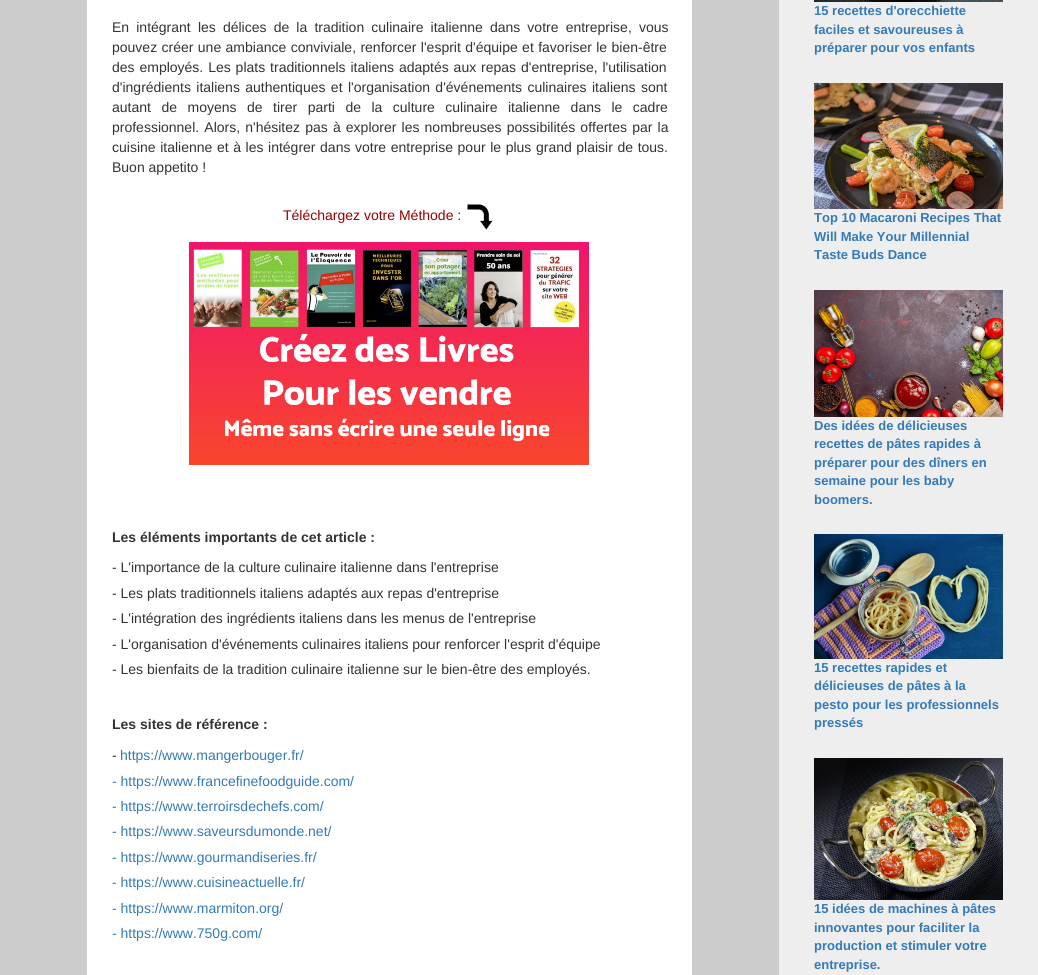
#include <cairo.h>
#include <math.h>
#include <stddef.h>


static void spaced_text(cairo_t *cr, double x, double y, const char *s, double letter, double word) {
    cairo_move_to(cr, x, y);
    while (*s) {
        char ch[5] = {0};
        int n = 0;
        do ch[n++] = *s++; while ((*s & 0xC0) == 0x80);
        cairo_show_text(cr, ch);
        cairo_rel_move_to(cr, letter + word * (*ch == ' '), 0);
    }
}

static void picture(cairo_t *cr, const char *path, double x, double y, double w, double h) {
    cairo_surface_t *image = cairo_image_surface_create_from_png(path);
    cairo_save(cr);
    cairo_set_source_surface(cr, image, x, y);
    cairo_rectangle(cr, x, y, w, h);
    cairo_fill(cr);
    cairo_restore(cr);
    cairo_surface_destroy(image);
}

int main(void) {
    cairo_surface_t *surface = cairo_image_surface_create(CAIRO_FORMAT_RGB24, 1038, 975);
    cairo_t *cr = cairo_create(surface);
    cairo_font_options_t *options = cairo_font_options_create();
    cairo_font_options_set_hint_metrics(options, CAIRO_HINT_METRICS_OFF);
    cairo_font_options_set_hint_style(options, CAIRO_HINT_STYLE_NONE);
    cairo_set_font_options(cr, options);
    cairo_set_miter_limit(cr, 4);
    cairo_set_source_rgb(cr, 0.8, 0.8, 0.8);
    cairo_paint(cr);
    cairo_set_source_rgb(cr, 1, 1, 1);
    cairo_rectangle(cr, 87, 0, 605, 975);
    cairo_fill(cr);
    cairo_select_font_face(cr, "Liberation Sans", CAIRO_FONT_SLANT_NORMAL, CAIRO_FONT_WEIGHT_NORMAL);
    cairo_set_font_size(cr, 14);
    cairo_set_source_rgb(cr, 0.2, 0.2, 0.2);
    spaced_text(cr, 112, 32, "En intégrant les délices de la tradition culinaire italienne dans votre entreprise, vous", 0, 3.25);
    spaced_text(cr, 112, 52, "pouvez créer une ambiance conviviale, renforcer l'esprit d'équipe et favoriser le bien-être", 0, 0.5);
    spaced_text(cr, 112, 72, "des employés. Les plats traditionnels italiens adaptés aux repas d'entreprise, l'utilisation", 0, 1);
    spaced_text(cr, 112, 92, "d'ingrédients italiens authentiques et l'organisation d'événements culinaires italiens sont", 0, 1.5);
    spaced_text(cr, 112, 112, "autant de moyens de tirer parti de la culture culinaire italienne dans le cadre", 0, 6.6);
    spaced_text(cr, 112, 132, "professionnel. Alors, n'hésitez pas à explorer les nombreuses possibilités offertes par la", 0, 1.25);
    spaced_text(cr, 112, 152, "cuisine italienne et à les intégrer dans votre entreprise pour le plus grand plaisir de tous.", 0, 0.7);
    cairo_move_to(cr, 112, 172);
    cairo_show_text(cr, "Buon appetito !");
    cairo_set_source_rgb(cr, 0.6, 0, 0);
    cairo_move_to(cr, 283, 220);
    cairo_show_text(cr, "Téléchargez votre Méthode :");
    picture(cr, "img1.png", 467, 204, 26, 26);
    picture(cr, "img2.png", 189, 242, 400, 223);
    cairo_select_font_face(cr, "Liberation Sans", CAIRO_FONT_SLANT_NORMAL, CAIRO_FONT_WEIGHT_BOLD);
    cairo_set_source_rgb(cr, 0.2, 0.2, 0.2);
    cairo_move_to(cr, 112, 542);
    cairo_show_text(cr, "Les éléments importants de cet article :");
    cairo_select_font_face(cr, "Liberation Sans", CAIRO_FONT_SLANT_NORMAL, CAIRO_FONT_WEIGHT_NORMAL);
    cairo_move_to(cr, 112, 572);
    cairo_show_text(cr, "- L'importance de la culture culinaire italienne dans l'entreprise");
    cairo_move_to(cr, 112, 598);
    cairo_show_text(cr, "- Les plats traditionnels italiens adaptés aux repas d'entreprise");
    cairo_move_to(cr, 112, 623);
    cairo_show_text(cr, "- L'intégration des ingrédients italiens dans les menus de l'entreprise");
    cairo_move_to(cr, 112, 649);
    cairo_show_text(cr, "- L'organisation d'événements culinaires italiens pour renforcer l'esprit d'équipe");
    cairo_move_to(cr, 112, 674);
    cairo_show_text(cr, "- Les bienfaits de la tradition culinaire italienne sur le bien-être des employés.");
    cairo_select_font_face(cr, "Liberation Sans", CAIRO_FONT_SLANT_NORMAL, CAIRO_FONT_WEIGHT_BOLD);
    cairo_move_to(cr, 112, 729);
    cairo_show_text(cr, "Les sites de référence :");
    cairo_select_font_face(cr, "Liberation Sans", CAIRO_FONT_SLANT_NORMAL, CAIRO_FONT_WEIGHT_NORMAL);
    cairo_move_to(cr, 112, 760);
    cairo_show_text(cr, "-");
    cairo_set_source_rgb(cr, 0.2, 0.478, 0.718);
    cairo_move_to(cr, 120, 760);
    cairo_show_text(cr, "https://www.mangerbouger.fr/");
    cairo_move_to(cr, 112, 786);
    cairo_show_text(cr, "- https://www.francefinefoodguide.com/");
    cairo_move_to(cr, 112, 811);
    cairo_show_text(cr, "- https://www.terroirsdechefs.com/");
    cairo_move_to(cr, 112, 836);
    cairo_show_text(cr, "- https://www.saveursdumonde.net/");
    cairo_move_to(cr, 112, 862);
    cairo_show_text(cr, "- https://www.gourmandiseries.fr/");
    cairo_move_to(cr, 112, 887);
    cairo_show_text(cr, "- https://www.cuisineactuelle.fr/");
    cairo_move_to(cr, 112, 913);
    cairo_show_text(cr, "- https://www.marmiton.org/");
    cairo_move_to(cr, 112, 938);
    cairo_show_text(cr, "- https://www.750g.com/");
    cairo_set_source_rgb(cr, 0.933, 0.933, 0.933);
    cairo_rectangle(cr, 779, 0, 259, 975);
    cairo_fill(cr);
    picture(cr, "img3.png", 814, 0, 189, 2);
    cairo_select_font_face(cr, "Liberation Sans", CAIRO_FONT_SLANT_NORMAL, CAIRO_FONT_WEIGHT_BOLD);
    cairo_set_font_size(cr, 13);
    cairo_set_source_rgb(cr, 0.2, 0.478, 0.718);
    cairo_move_to(cr, 814, 15);
    cairo_show_text(cr, "15 recettes d'orecchiette");
    cairo_move_to(cr, 814, 34);
    cairo_show_text(cr, "faciles et savoureuses à");
    cairo_move_to(cr, 814, 52);
    cairo_show_text(cr, "préparer pour vos enfants");
    picture(cr, "img4.png", 814, 83, 189, 126);
    cairo_move_to(cr, 814, 222);
    cairo_show_text(cr, "Top 10 Macaroni Recipes That");
    cairo_move_to(cr, 814, 241);
    cairo_show_text(cr, "Will Make Your Millennial");
    cairo_move_to(cr, 814, 259);
    cairo_show_text(cr, "Taste Buds Dance");
    picture(cr, "img5.png", 814, 290, 189, 127);
    cairo_move_to(cr, 814, 430);
    cairo_show_text(cr, "Des idées de délicieuses");
    cairo_move_to(cr, 814, 448);
    cairo_show_text(cr, "recettes de pâtes rapides à");
    cairo_move_to(cr, 814, 467);
    cairo_show_text(cr, "préparer pour des dîners en");
    cairo_move_to(cr, 814, 485);
    cairo_show_text(cr, "semaine pour les baby");
    cairo_move_to(cr, 814, 504);
    cairo_show_text(cr, "boomers.");
    picture(cr, "img6.png", 814, 534, 189, 125);
    cairo_move_to(cr, 814, 672);
    cairo_show_text(cr, "15 recettes rapides et");
    cairo_move_to(cr, 814, 690);
    cairo_show_text(cr, "délicieuses de pâtes à la");
    cairo_move_to(cr, 814, 709);
    cairo_show_text(cr, "pesto pour les professionnels");
    cairo_move_to(cr, 814, 727);
    cairo_show_text(cr, "pressés");
    picture(cr, "img7.png", 814, 758, 189, 142);
    cairo_move_to(cr, 814, 913);
    cairo_show_text(cr, "15 idées de machines à pâtes");
    cairo_move_to(cr, 814, 932);
    cairo_show_text(cr, "innovantes pour faciliter la");
    cairo_move_to(cr, 814, 950);
    cairo_show_text(cr, "production et stimuler votre");
    cairo_move_to(cr, 814, 969);
    cairo_show_text(cr, "entreprise.");
    cairo_surface_write_to_png(surface, "page.png");
    cairo_font_options_destroy(options);
    cairo_destroy(cr);
    cairo_surface_destroy(surface);
    return 0;
}
